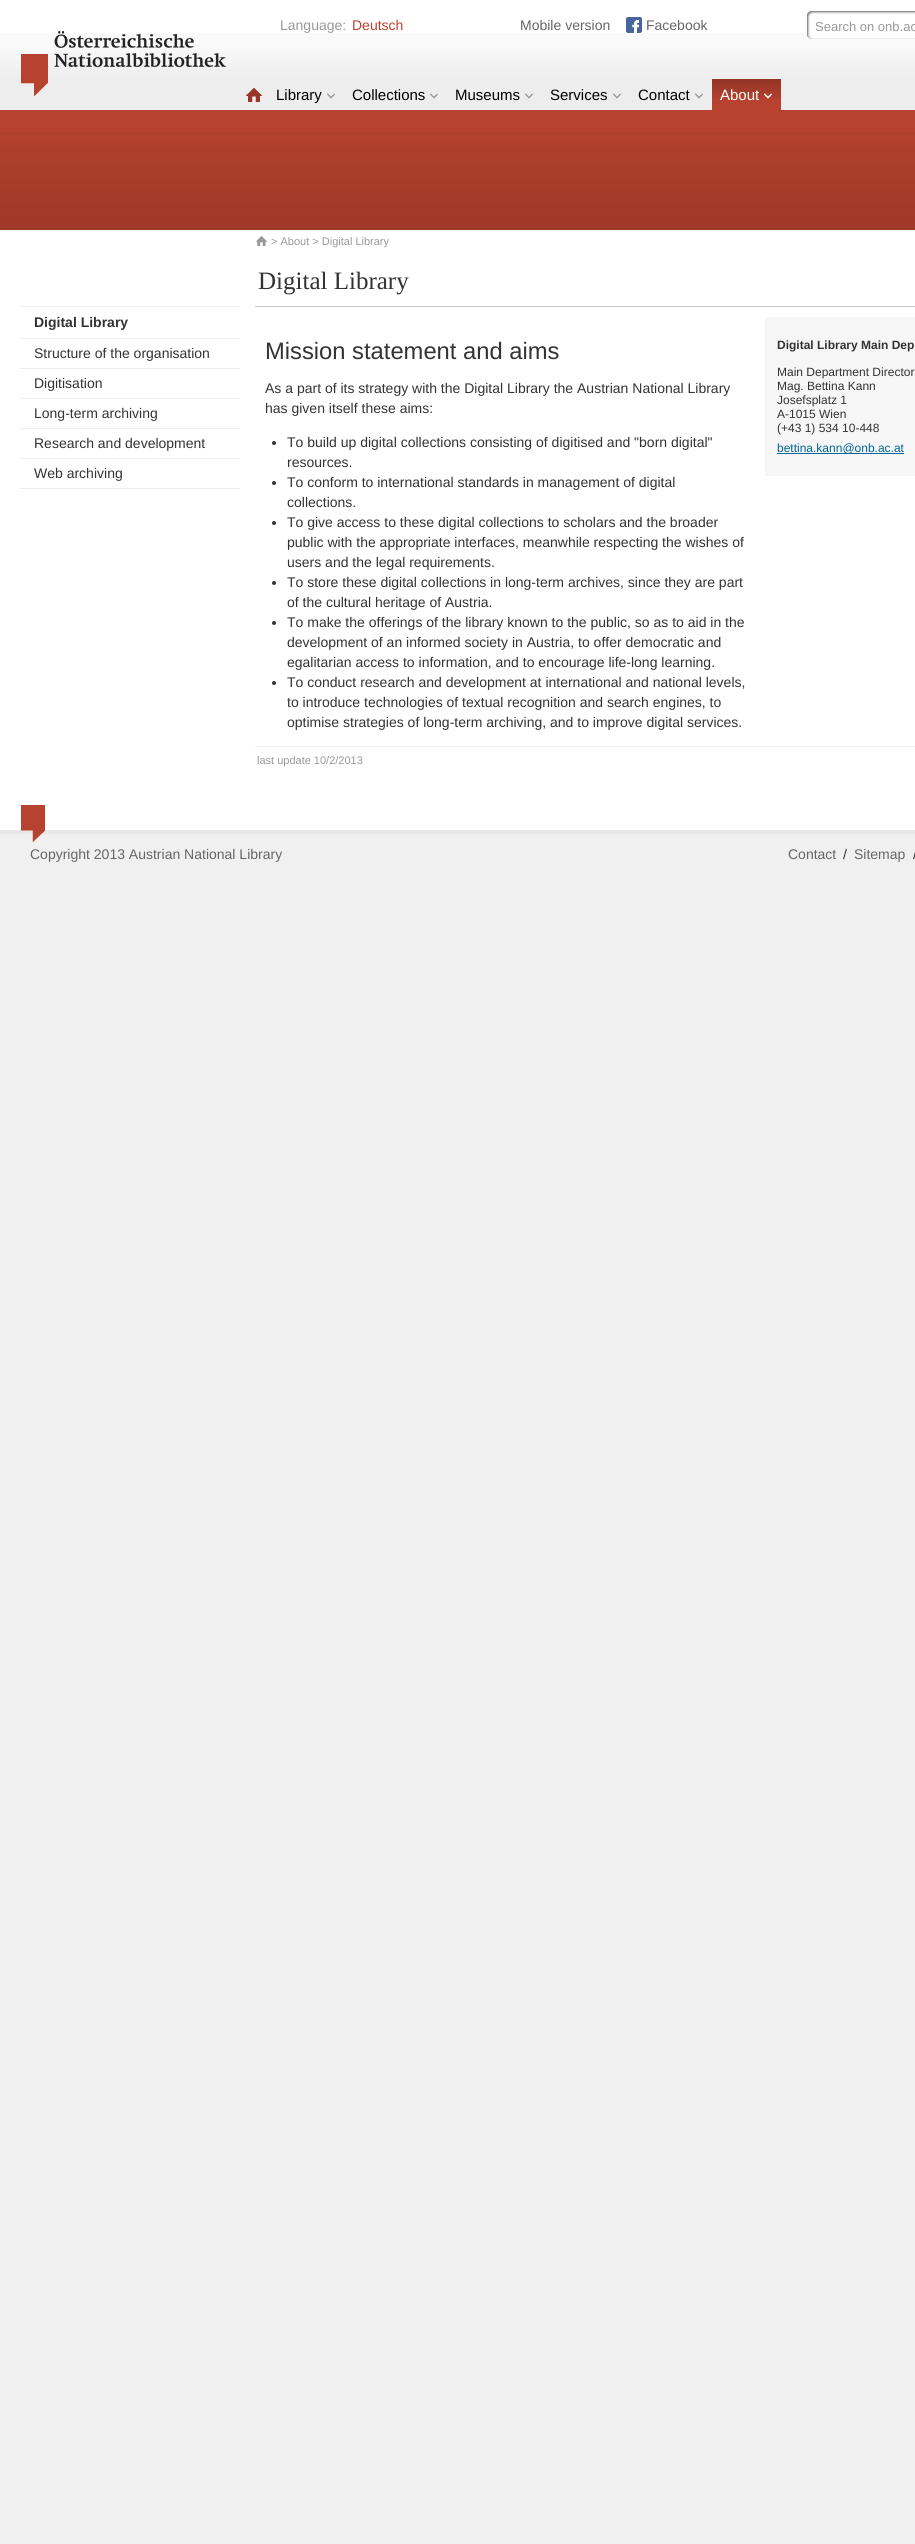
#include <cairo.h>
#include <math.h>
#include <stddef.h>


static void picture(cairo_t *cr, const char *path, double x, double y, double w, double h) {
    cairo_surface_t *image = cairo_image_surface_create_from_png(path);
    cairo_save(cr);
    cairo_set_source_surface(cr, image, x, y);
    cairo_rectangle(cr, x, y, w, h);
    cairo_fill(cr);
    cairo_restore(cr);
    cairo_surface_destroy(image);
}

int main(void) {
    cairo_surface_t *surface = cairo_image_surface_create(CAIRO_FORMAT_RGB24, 915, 2544);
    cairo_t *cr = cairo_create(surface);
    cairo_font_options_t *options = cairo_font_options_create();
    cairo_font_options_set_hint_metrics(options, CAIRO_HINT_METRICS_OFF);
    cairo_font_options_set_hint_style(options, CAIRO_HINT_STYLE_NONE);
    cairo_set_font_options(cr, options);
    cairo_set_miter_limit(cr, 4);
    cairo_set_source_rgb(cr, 0.941, 0.941, 0.941);
    cairo_paint(cr);
    cairo_set_source_rgb(cr, 1, 1, 1);
    cairo_rectangle(cr, 0, 0, 915, 830);
    cairo_fill(cr);
    picture(cr, "img1.png", 0, 33, 915, 77);
    cairo_select_font_face(cr, "Liberation Sans", CAIRO_FONT_SLANT_NORMAL, CAIRO_FONT_WEIGHT_NORMAL);
    cairo_set_font_size(cr, 14);
    cairo_set_source_rgb(cr, 0.6, 0.6, 0.6);
    cairo_move_to(cr, 280, 30);
    cairo_show_text(cr, "Language:");
    cairo_set_source_rgb(cr, 0.718, 0.255, 0.18);
    cairo_move_to(cr, 352, 30);
    cairo_show_text(cr, "Deutsch");
    cairo_set_source_rgb(cr, 0.4, 0.4, 0.4);
    cairo_move_to(cr, 520, 30);
    cairo_show_text(cr, "Mobile version");
    picture(cr, "img2.png", 626, 17, 16, 16);
    cairo_move_to(cr, 646, 30);
    cairo_show_text(cr, "Facebook");
    picture(cr, "img3.png", 807, 11, 108, 28);
    cairo_set_font_size(cr, 13);
    cairo_set_source_rgb(cr, 0.6, 0.6, 0.6);
    cairo_move_to(cr, 815, 31);
    cairo_show_text(cr, "Search on onb.ac");
    picture(cr, "img4.png", 21, 31, 205, 65);
    picture(cr, "img5.png", 246, 88, 16, 14);
    cairo_set_font_size(cr, 15);
    cairo_set_source_rgb(cr, 0, 0, 0);
    cairo_move_to(cr, 276, 100);
    cairo_show_text(cr, "Library");
    picture(cr, "img6.png", 327, 93, 8, 6);
    cairo_move_to(cr, 352, 100);
    cairo_show_text(cr, "Collections");
    picture(cr, "img6.png", 430, 93, 8, 6);
    cairo_move_to(cr, 455, 100);
    cairo_show_text(cr, "Museums");
    picture(cr, "img6.png", 525, 93, 8, 6);
    cairo_move_to(cr, 550, 100);
    cairo_show_text(cr, "Services");
    picture(cr, "img6.png", 613, 93, 8, 6);
    cairo_move_to(cr, 638, 100);
    cairo_show_text(cr, "Contact");
    picture(cr, "img6.png", 695, 93, 8, 6);
    cairo_set_source_rgb(cr, 0.718, 0.259, 0.184);
    cairo_rectangle(cr, 712, 99, 69, 11);
    cairo_fill(cr);
    picture(cr, "img7.png", 712, 79, 69, 20);
    cairo_set_source_rgb(cr, 1, 1, 1);
    cairo_move_to(cr, 720, 100);
    cairo_show_text(cr, "About");
    picture(cr, "img8.png", 764, 93, 8, 6);
    cairo_set_source_rgb(cr, 0.718, 0.259, 0.184);
    cairo_rectangle(cr, 0, 110, 915, 22);
    cairo_fill(cr);
    picture(cr, "img9.png", 0, 132, 915, 98);
    picture(cr, "img10.png", 256, 236, 11, 10);
    cairo_set_font_size(cr, 11);
    cairo_set_source_rgb(cr, 0.6, 0.6, 0.6);
    cairo_move_to(cr, 271, 245);
    cairo_show_text(cr, "> About > Digital Library");
    cairo_set_source_rgb(cr, 0.929, 0.929, 0.929);
    cairo_rectangle(cr, 20, 306, 220, 1);
    cairo_fill(cr);
    cairo_rectangle(cr, 20, 338, 220, 1);
    cairo_fill(cr);
    cairo_select_font_face(cr, "Liberation Sans", CAIRO_FONT_SLANT_NORMAL, CAIRO_FONT_WEIGHT_BOLD);
    cairo_set_font_size(cr, 14);
    cairo_set_source_rgb(cr, 0.2, 0.2, 0.2);
    cairo_move_to(cr, 34, 327);
    cairo_show_text(cr, "Digital Library");
    cairo_set_source_rgb(cr, 0.929, 0.929, 0.929);
    cairo_rectangle(cr, 20, 368, 220, 1);
    cairo_fill(cr);
    cairo_select_font_face(cr, "Liberation Sans", CAIRO_FONT_SLANT_NORMAL, CAIRO_FONT_WEIGHT_NORMAL);
    cairo_set_source_rgb(cr, 0.2, 0.2, 0.2);
    cairo_move_to(cr, 34, 358);
    cairo_show_text(cr, "Structure of the organisation");
    cairo_set_source_rgb(cr, 0.929, 0.929, 0.929);
    cairo_rectangle(cr, 20, 398, 220, 1);
    cairo_fill(cr);
    cairo_set_source_rgb(cr, 0.2, 0.2, 0.2);
    cairo_move_to(cr, 34, 388);
    cairo_show_text(cr, "Digitisation");
    cairo_set_source_rgb(cr, 0.929, 0.929, 0.929);
    cairo_rectangle(cr, 20, 428, 220, 1);
    cairo_fill(cr);
    cairo_set_source_rgb(cr, 0.2, 0.2, 0.2);
    cairo_move_to(cr, 34, 418);
    cairo_show_text(cr, "Long-term archiving");
    cairo_set_source_rgb(cr, 0.929, 0.929, 0.929);
    cairo_rectangle(cr, 20, 458, 220, 1);
    cairo_fill(cr);
    cairo_set_source_rgb(cr, 0.2, 0.2, 0.2);
    cairo_move_to(cr, 34, 448);
    cairo_show_text(cr, "Research and development");
    cairo_set_source_rgb(cr, 0.929, 0.929, 0.929);
    cairo_rectangle(cr, 20, 488, 220, 1);
    cairo_fill(cr);
    cairo_set_source_rgb(cr, 0.2, 0.2, 0.2);
    cairo_move_to(cr, 34, 478);
    cairo_show_text(cr, "Web archiving");
    cairo_set_source_rgb(cr, 0.8, 0.8, 0.8);
    cairo_rectangle(cr, 255, 306, 660, 1);
    cairo_fill(cr);
    cairo_select_font_face(cr, "Liberation Serif", CAIRO_FONT_SLANT_NORMAL, CAIRO_FONT_WEIGHT_NORMAL);
    cairo_set_font_size(cr, 25);
    cairo_set_source_rgb(cr, 0.2, 0.2, 0.2);
    cairo_move_to(cr, 258, 289);
    cairo_show_text(cr, "Digital Library");
    cairo_select_font_face(cr, "Liberation Sans", CAIRO_FONT_SLANT_NORMAL, CAIRO_FONT_WEIGHT_NORMAL);
    cairo_set_font_size(cr, 23.75);
    cairo_move_to(cr, 265, 359);
    cairo_show_text(cr, "Mission statement and aims");
    cairo_set_font_size(cr, 14);
    cairo_move_to(cr, 265, 393);
    cairo_show_text(cr, "As a part of its strategy with the Digital Library the Austrian National Library");
    cairo_move_to(cr, 265, 413);
    cairo_show_text(cr, "has given itself these aims:");
    cairo_new_path(cr);
    cairo_arc(cr, 274, 443, 2, 0, 2 * M_PI);
    cairo_fill(cr);
    cairo_move_to(cr, 287, 447);
    cairo_show_text(cr, "To build up digital collections consisting of digitised and \"born digital\"");
    cairo_move_to(cr, 287, 467);
    cairo_show_text(cr, "resources.");
    cairo_new_path(cr);
    cairo_arc(cr, 274, 483, 2, 0, 2 * M_PI);
    cairo_fill(cr);
    cairo_move_to(cr, 287, 487);
    cairo_show_text(cr, "To conform to international standards in management of digital");
    cairo_move_to(cr, 287, 507);
    cairo_show_text(cr, "collections.");
    cairo_new_path(cr);
    cairo_arc(cr, 274, 523, 2, 0, 2 * M_PI);
    cairo_fill(cr);
    cairo_move_to(cr, 287, 527);
    cairo_show_text(cr, "To give access to these digital collections to scholars and the broader");
    cairo_move_to(cr, 287, 547);
    cairo_show_text(cr, "public with the appropriate interfaces, meanwhile respecting the wishes of");
    cairo_move_to(cr, 287, 567);
    cairo_show_text(cr, "users and the legal requirements.");
    cairo_new_path(cr);
    cairo_arc(cr, 274, 583, 2, 0, 2 * M_PI);
    cairo_fill(cr);
    cairo_move_to(cr, 287, 587);
    cairo_show_text(cr, "To store these digital collections in long-term archives, since they are part");
    cairo_move_to(cr, 287, 607);
    cairo_show_text(cr, "of the cultural heritage of Austria.");
    cairo_new_path(cr);
    cairo_arc(cr, 274, 623, 2, 0, 2 * M_PI);
    cairo_fill(cr);
    cairo_move_to(cr, 287, 627);
    cairo_show_text(cr, "To make the offerings of the library known to the public, so as to aid in the");
    cairo_move_to(cr, 287, 647);
    cairo_show_text(cr, "development of an informed society in Austria, to offer democratic and");
    cairo_move_to(cr, 287, 667);
    cairo_show_text(cr, "egalitarian access to information, and to encourage life-long learning.");
    cairo_new_path(cr);
    cairo_arc(cr, 274, 683, 2, 0, 2 * M_PI);
    cairo_fill(cr);
    cairo_move_to(cr, 287, 687);
    cairo_show_text(cr, "To conduct research and development at international and national levels,");
    cairo_move_to(cr, 287, 707);
    cairo_show_text(cr, "to introduce technologies of textual recognition and search engines, to");
    cairo_move_to(cr, 287, 727);
    cairo_show_text(cr, "optimise strategies of long-term archiving, and to improve digital services.");
    cairo_set_source_rgb(cr, 0.961, 0.961, 0.961);
    cairo_rectangle(cr, 765, 317, 150, 159);
    cairo_fill(cr);
    cairo_select_font_face(cr, "Liberation Sans", CAIRO_FONT_SLANT_NORMAL, CAIRO_FONT_WEIGHT_BOLD);
    cairo_set_font_size(cr, 12);
    cairo_set_source_rgb(cr, 0.2, 0.2, 0.2);
    cairo_move_to(cr, 777, 349);
    cairo_show_text(cr, "Digital Library Main Dep");
    cairo_select_font_face(cr, "Liberation Sans", CAIRO_FONT_SLANT_NORMAL, CAIRO_FONT_WEIGHT_NORMAL);
    cairo_move_to(cr, 777, 376);
    cairo_show_text(cr, "Main Department Director");
    cairo_move_to(cr, 777, 390);
    cairo_show_text(cr, "Mag. Bettina Kann");
    cairo_move_to(cr, 777, 404);
    cairo_show_text(cr, "Josefsplatz 1");
    cairo_move_to(cr, 777, 418);
    cairo_show_text(cr, "A-1015 Wien");
    cairo_move_to(cr, 777, 432);
    cairo_show_text(cr, "(+43 1) 534 10-448");
    cairo_set_source_rgb(cr, 0, 0.4, 0.6);
    cairo_rectangle(cr, 777, 453, 127, 1);
    cairo_fill(cr);
    cairo_move_to(cr, 777, 452);
    cairo_show_text(cr, "bettina.kann@onb.ac.at");
    cairo_set_source_rgb(cr, 0.929, 0.929, 0.929);
    cairo_rectangle(cr, 255, 746, 660, 1);
    cairo_fill(cr);
    cairo_set_font_size(cr, 11);
    cairo_set_source_rgb(cr, 0.6, 0.6, 0.6);
    cairo_move_to(cr, 257, 764);
    cairo_show_text(cr, "last update 10/2/2013");
    cairo_set_source_rgb(cr, 0.906, 0.906, 0.906);
    cairo_rectangle(cr, 0, 830, 915, 4);
    cairo_fill(cr);
    picture(cr, "img11.png", 21, 805, 24, 37);
    cairo_set_font_size(cr, 14);
    cairo_set_source_rgb(cr, 0.4, 0.4, 0.4);
    cairo_move_to(cr, 30, 859);
    cairo_show_text(cr, "Copyright 2013 Austrian National Library");
    cairo_move_to(cr, 788, 859);
    cairo_show_text(cr, "Contact");
    cairo_set_source_rgb(cr, 0.2, 0.2, 0.2);
    cairo_move_to(cr, 843, 859);
    cairo_show_text(cr, "/");
    cairo_set_source_rgb(cr, 0.4, 0.4, 0.4);
    cairo_move_to(cr, 854, 859);
    cairo_show_text(cr, "Sitemap");
    cairo_set_source_rgb(cr, 0.2, 0.2, 0.2);
    cairo_move_to(cr, 913, 859);
    cairo_show_text(cr, "/");
    cairo_surface_write_to_png(surface, "page.png");
    cairo_font_options_destroy(options);
    cairo_destroy(cr);
    cairo_surface_destroy(surface);
    return 0;
}
